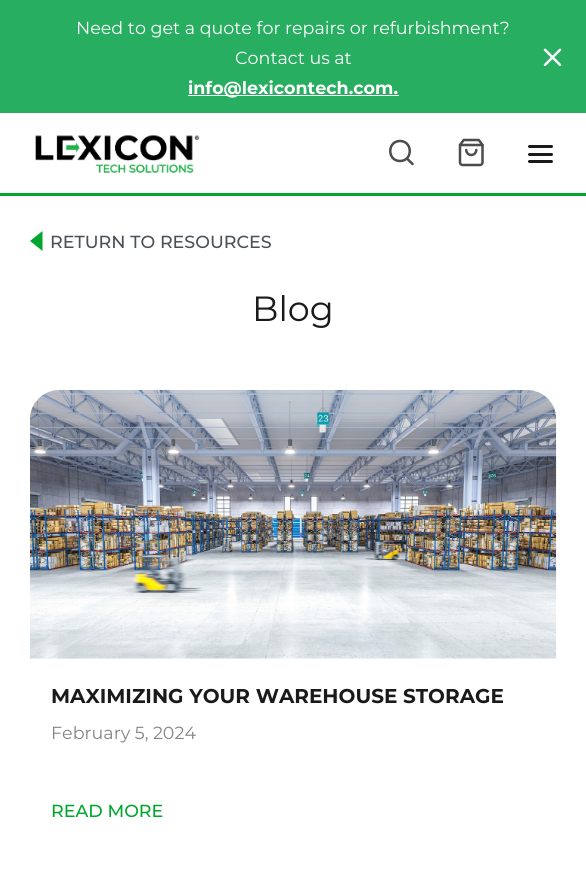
#include <cairo.h>
#include <math.h>
#include <stddef.h>


static void round_rect(cairo_t *cr, double x, double y, double w, double h, double r) {
    cairo_new_sub_path(cr);
    cairo_arc(cr, x + w - r, y + h - r, r, 0, M_PI / 2);
    cairo_arc(cr, x + r, y + h - r, r, M_PI / 2, M_PI);
    cairo_arc(cr, x + r, y + r, r, M_PI, 1.5 * M_PI);
    cairo_arc(cr, x + w - r, y + r, r, 1.5 * M_PI, 2 * M_PI);
    cairo_close_path(cr);
}

static void picture(cairo_t *cr, const char *path, double x, double y, double w, double h) {
    cairo_surface_t *image = cairo_image_surface_create_from_png(path);
    cairo_save(cr);
    cairo_set_source_surface(cr, image, x, y);
    cairo_rectangle(cr, x, y, w, h);
    cairo_fill(cr);
    cairo_restore(cr);
    cairo_surface_destroy(image);
}

int main(void) {
    cairo_surface_t *surface = cairo_image_surface_create(CAIRO_FORMAT_RGB24, 586, 875);
    cairo_t *cr = cairo_create(surface);
    cairo_font_options_t *options = cairo_font_options_create();
    cairo_font_options_set_hint_metrics(options, CAIRO_HINT_METRICS_OFF);
    cairo_font_options_set_hint_style(options, CAIRO_HINT_STYLE_NONE);
    cairo_set_font_options(cr, options);
    cairo_set_miter_limit(cr, 4);
    cairo_set_source_rgb(cr, 1, 1, 1);
    cairo_paint(cr);
    cairo_set_source_rgb(cr, 0, 0.647, 0.176);
    cairo_rectangle(cr, 0, 193, 586, 3);
    cairo_fill(cr);
    cairo_set_source_rgb(cr, 0.153, 0.682, 0.376);
    cairo_rectangle(cr, 0, 0, 586, 113);
    cairo_fill(cr);
    cairo_select_font_face(cr, "Montserrat", CAIRO_FONT_SLANT_NORMAL, CAIRO_FONT_WEIGHT_NORMAL);
    cairo_set_font_size(cr, 17.5);
    cairo_set_source_rgb(cr, 1, 1, 1);
    cairo_move_to(cr, 76, 34);
    cairo_show_text(cr, "Need to get a quote for repairs or refurbishment?");
    cairo_move_to(cr, 235, 64);
    cairo_show_text(cr, "Contact us at");
    picture(cr, "img1.png", 543, 48, 19, 18);
    cairo_rectangle(cr, 188, 95, 211, 1);
    cairo_fill(cr);
    cairo_select_font_face(cr, "Montserrat", CAIRO_FONT_SLANT_NORMAL, CAIRO_FONT_WEIGHT_BOLD);
    cairo_move_to(cr, 188, 94);
    cairo_show_text(cr, "info@lexicontech.com.");
    picture(cr, "img2.png", 35, 134, 165, 39);
    cairo_new_path(cr);
    cairo_move_to(cr, 400, 161);
    cairo_curve_to(cr, 413, 161, 413, 141, 400, 141);
    cairo_curve_to(cr, 387, 141, 387, 161, 400, 161);
    cairo_close_path(cr);
    cairo_move_to(cr, 412.5, 164);
    cairo_line_to(cr, 407, 158.5);
    cairo_set_source_rgb(cr, 0.298, 0.298, 0.298);
    cairo_set_line_width(cr, 2.5);
    cairo_set_line_cap(cr, CAIRO_LINE_CAP_ROUND);
    cairo_set_line_join(cr, CAIRO_LINE_JOIN_ROUND);
    cairo_stroke(cr);
    picture(cr, "img3.png", 458, 138, 26, 29);
    cairo_set_source_rgb(cr, 0.102, 0.102, 0.102);
    round_rect(cr, 528, 145, 25, 3, 1.5);
    cairo_fill(cr);
    round_rect(cr, 528, 153, 25, 3, 1.5);
    cairo_fill(cr);
    round_rect(cr, 528, 160, 25, 3, 1.5);
    cairo_fill(cr);
    cairo_set_source_rgb(cr, 0, 0.647, 0.176);
    cairo_new_path(cr);
    cairo_move_to(cr, 42.5, 231);
    cairo_line_to(cr, 42.5, 251);
    cairo_line_to(cr, 30, 241);
    cairo_close_path(cr);
    cairo_fill(cr);
    cairo_select_font_face(cr, "Montserrat Medium", CAIRO_FONT_SLANT_NORMAL, CAIRO_FONT_WEIGHT_NORMAL);
    cairo_set_source_rgb(cr, 0.286, 0.314, 0.341);
    cairo_move_to(cr, 50, 248);
    cairo_show_text(cr, "RETURN TO RESOURCES");
    cairo_select_font_face(cr, "Montserrat", CAIRO_FONT_SLANT_NORMAL, CAIRO_FONT_WEIGHT_NORMAL);
    cairo_set_font_size(cr, 35);
    cairo_set_source_rgb(cr, 0.102, 0.102, 0.102);
    cairo_move_to(cr, 252, 321);
    cairo_show_text(cr, "Blog");
    picture(cr, "img4.png", 30, 390, 527, 269);
    cairo_select_font_face(cr, "Montserrat", CAIRO_FONT_SLANT_NORMAL, CAIRO_FONT_WEIGHT_BOLD);
    cairo_set_font_size(cr, 20);
    cairo_move_to(cr, 51, 703);
    cairo_show_text(cr, "MAXIMIZING YOUR WAREHOUSE STORAGE");
    cairo_select_font_face(cr, "Montserrat", CAIRO_FONT_SLANT_NORMAL, CAIRO_FONT_WEIGHT_NORMAL);
    cairo_set_font_size(cr, 17.5);
    cairo_set_source_rgb(cr, 0.518, 0.518, 0.518);
    cairo_move_to(cr, 51, 739);
    cairo_show_text(cr, "February 5, 2024");
    cairo_select_font_face(cr, "Montserrat Medium", CAIRO_FONT_SLANT_NORMAL, CAIRO_FONT_WEIGHT_NORMAL);
    cairo_set_source_rgb(cr, 0, 0.647, 0.176);
    cairo_move_to(cr, 51, 817);
    cairo_show_text(cr, "READ MORE");
    cairo_surface_write_to_png(surface, "page.png");
    cairo_font_options_destroy(options);
    cairo_destroy(cr);
    cairo_surface_destroy(surface);
    return 0;
}
